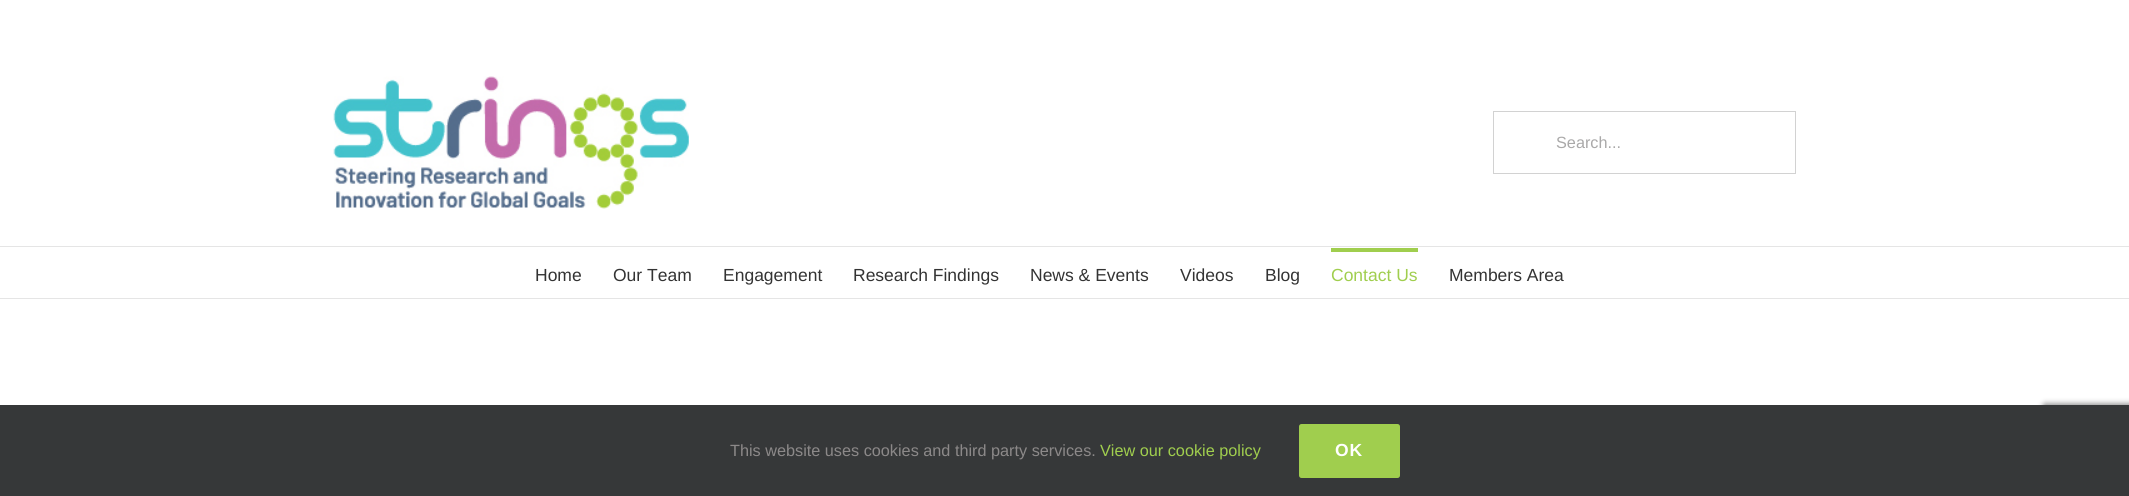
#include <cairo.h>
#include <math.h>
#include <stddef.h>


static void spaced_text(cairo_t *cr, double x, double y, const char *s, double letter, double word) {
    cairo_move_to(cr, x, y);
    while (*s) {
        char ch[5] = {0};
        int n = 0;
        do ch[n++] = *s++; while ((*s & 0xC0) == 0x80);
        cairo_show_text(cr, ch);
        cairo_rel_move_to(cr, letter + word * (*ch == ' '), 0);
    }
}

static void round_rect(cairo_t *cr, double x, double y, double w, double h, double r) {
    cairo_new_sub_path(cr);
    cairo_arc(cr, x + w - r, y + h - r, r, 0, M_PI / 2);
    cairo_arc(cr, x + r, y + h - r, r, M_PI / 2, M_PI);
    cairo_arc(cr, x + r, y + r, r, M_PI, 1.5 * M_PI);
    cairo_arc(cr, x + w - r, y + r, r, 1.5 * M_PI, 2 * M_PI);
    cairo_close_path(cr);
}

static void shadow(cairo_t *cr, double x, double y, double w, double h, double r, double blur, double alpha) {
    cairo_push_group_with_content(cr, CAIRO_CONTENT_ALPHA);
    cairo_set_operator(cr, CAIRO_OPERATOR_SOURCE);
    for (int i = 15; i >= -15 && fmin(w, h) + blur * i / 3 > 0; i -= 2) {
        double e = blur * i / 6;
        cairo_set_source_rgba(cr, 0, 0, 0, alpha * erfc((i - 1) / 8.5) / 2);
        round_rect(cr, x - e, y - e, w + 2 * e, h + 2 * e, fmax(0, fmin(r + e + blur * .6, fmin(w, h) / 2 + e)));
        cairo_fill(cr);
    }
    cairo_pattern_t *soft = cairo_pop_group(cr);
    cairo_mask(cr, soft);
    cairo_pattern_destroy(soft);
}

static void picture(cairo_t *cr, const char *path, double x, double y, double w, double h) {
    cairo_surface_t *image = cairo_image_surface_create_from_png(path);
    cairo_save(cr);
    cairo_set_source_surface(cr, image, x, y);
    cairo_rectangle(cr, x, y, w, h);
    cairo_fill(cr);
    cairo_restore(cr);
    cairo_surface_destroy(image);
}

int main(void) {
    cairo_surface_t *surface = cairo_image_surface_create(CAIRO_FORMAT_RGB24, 2129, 496);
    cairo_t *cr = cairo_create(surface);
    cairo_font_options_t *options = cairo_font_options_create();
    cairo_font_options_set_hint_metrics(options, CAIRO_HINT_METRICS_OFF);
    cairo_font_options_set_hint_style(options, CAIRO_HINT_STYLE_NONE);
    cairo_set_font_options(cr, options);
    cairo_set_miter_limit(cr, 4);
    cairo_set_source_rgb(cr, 1, 1, 1);
    cairo_paint(cr);
    cairo_set_source_rgb(cr, 0.898, 0.898, 0.898);
    cairo_rectangle(cr, 0, 246, 2129, 1);
    cairo_fill(cr);
    picture(cr, "img1.png", 333, 76, 356, 133);
    cairo_rectangle(cr, 1493.5, 111.5, 302, 62);
    cairo_set_source_rgb(cr, 0.824, 0.824, 0.824);
    cairo_set_line_width(cr, 1);
    cairo_stroke(cr);
    cairo_select_font_face(cr, "Liberation Sans", CAIRO_FONT_SLANT_NORMAL, CAIRO_FONT_WEIGHT_NORMAL);
    cairo_set_font_size(cr, 16.25);
    cairo_set_source_rgb(cr, 0.667, 0.663, 0.663);
    cairo_move_to(cr, 1556, 148);
    cairo_show_text(cr, "Search...");
    cairo_set_source_rgb(cr, 0.898, 0.898, 0.898);
    cairo_rectangle(cr, 0, 298, 2129, 1);
    cairo_fill(cr);
    cairo_set_font_size(cr, 17.5);
    cairo_set_source_rgb(cr, 0.2, 0.2, 0.2);
    cairo_move_to(cr, 535, 281);
    cairo_show_text(cr, "Home");
    cairo_move_to(cr, 613, 281);
    cairo_show_text(cr, "Our Team");
    cairo_move_to(cr, 723, 281);
    cairo_show_text(cr, "Engagement");
    cairo_move_to(cr, 853, 281);
    cairo_show_text(cr, "Research Findings");
    cairo_move_to(cr, 1030, 281);
    cairo_show_text(cr, "News & Events");
    cairo_move_to(cr, 1180, 281);
    cairo_show_text(cr, "Videos");
    cairo_move_to(cr, 1265, 281);
    cairo_show_text(cr, "Blog");
    cairo_set_source_rgb(cr, 0.627, 0.808, 0.306);
    cairo_rectangle(cr, 1331, 248, 87, 4);
    cairo_fill(cr);
    cairo_move_to(cr, 1331, 281);
    cairo_show_text(cr, "Contact Us");
    cairo_set_source_rgb(cr, 0.2, 0.2, 0.2);
    cairo_move_to(cr, 1449, 281);
    cairo_show_text(cr, "Members Area");
    cairo_set_source_rgb(cr, 0.502, 0.502, 0.502);
    shadow(cr, 2043, 404, 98, 75, 2.5, 3, 1);
    cairo_set_source_rgb(cr, 0.212, 0.22, 0.224);
    cairo_rectangle(cr, 0, 405, 2129, 91);
    cairo_fill(cr);
    cairo_set_font_size(cr, 16.25);
    cairo_set_source_rgb(cr, 0.549, 0.537, 0.537);
    cairo_move_to(cr, 730, 456);
    cairo_show_text(cr, "This website uses cookies and third party services.");
    cairo_set_source_rgb(cr, 0.627, 0.808, 0.306);
    cairo_move_to(cr, 1100, 456);
    cairo_show_text(cr, "View our cookie policy");
    round_rect(cr, 1299, 424, 101, 54, 2.5);
    cairo_fill(cr);
    cairo_select_font_face(cr, "Liberation Sans", CAIRO_FONT_SLANT_NORMAL, CAIRO_FONT_WEIGHT_BOLD);
    cairo_set_font_size(cr, 17.5);
    cairo_set_source_rgb(cr, 1, 1, 1);
    spaced_text(cr, 1335, 456, "OK", 1, 0);
    cairo_surface_write_to_png(surface, "page.png");
    cairo_font_options_destroy(options);
    cairo_destroy(cr);
    cairo_surface_destroy(surface);
    return 0;
}
